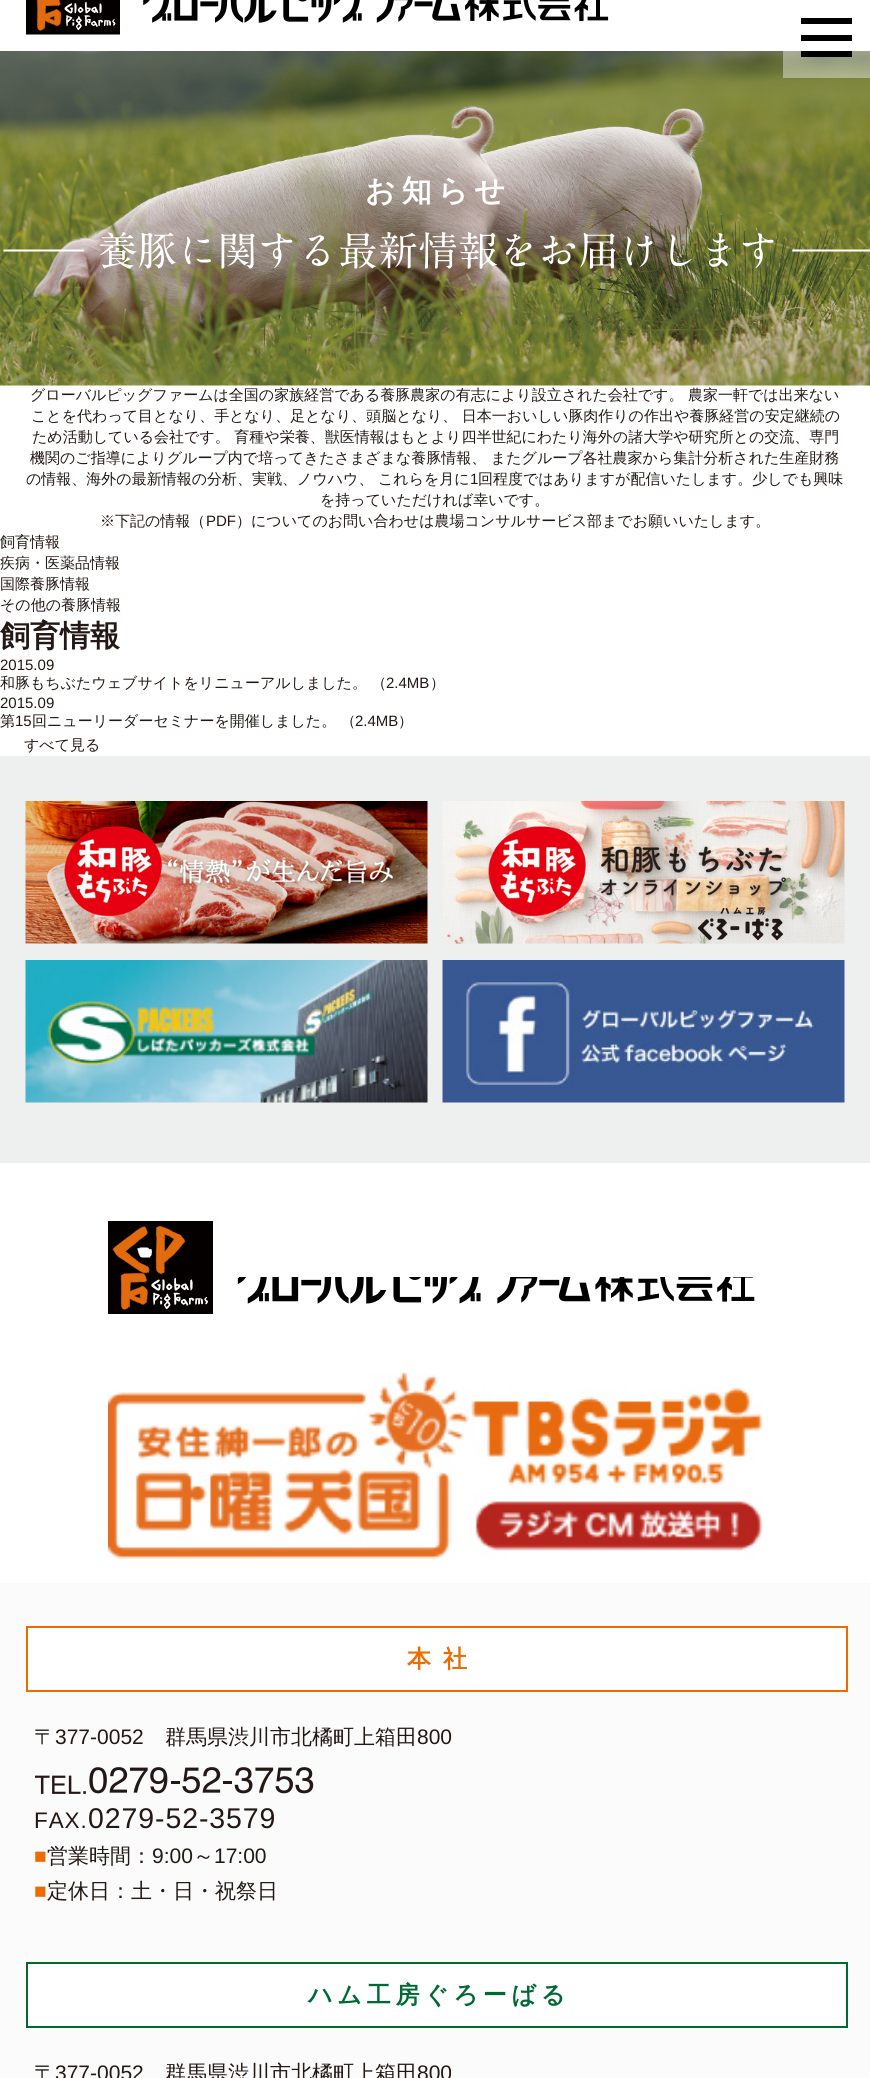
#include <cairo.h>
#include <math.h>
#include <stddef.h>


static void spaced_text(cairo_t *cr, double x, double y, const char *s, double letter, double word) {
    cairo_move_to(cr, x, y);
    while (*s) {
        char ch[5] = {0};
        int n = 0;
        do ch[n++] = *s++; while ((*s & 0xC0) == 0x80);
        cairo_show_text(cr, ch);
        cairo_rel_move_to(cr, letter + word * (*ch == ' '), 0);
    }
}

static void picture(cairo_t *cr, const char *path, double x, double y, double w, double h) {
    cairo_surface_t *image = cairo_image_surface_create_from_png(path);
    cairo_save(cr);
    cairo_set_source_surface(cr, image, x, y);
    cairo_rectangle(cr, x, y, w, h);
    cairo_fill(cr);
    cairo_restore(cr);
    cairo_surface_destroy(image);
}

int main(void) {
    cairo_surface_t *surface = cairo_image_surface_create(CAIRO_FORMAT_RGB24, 870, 2078);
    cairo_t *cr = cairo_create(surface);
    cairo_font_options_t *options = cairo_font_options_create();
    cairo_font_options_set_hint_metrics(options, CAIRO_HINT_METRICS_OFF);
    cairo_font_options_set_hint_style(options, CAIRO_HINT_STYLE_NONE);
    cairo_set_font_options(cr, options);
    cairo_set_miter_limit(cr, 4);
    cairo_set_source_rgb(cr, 1, 1, 1);
    cairo_paint(cr);
    picture(cr, "img1.png", 26, 0, 94, 35);
    picture(cr, "img2.png", 143, 0, 466, 23);
    picture(cr, "img3.png", 0, 51, 870, 335);
    cairo_set_source_rgba(cr, 1, 1, 1, 0.4);
    cairo_rectangle(cr, 783, 51, 87, 27);
    cairo_fill(cr);
    cairo_set_source_rgb(cr, 0, 0, 0);
    cairo_rectangle(cr, 801, 18, 51, 6);
    cairo_fill(cr);
    cairo_rectangle(cr, 801, 35, 51, 6);
    cairo_fill(cr);
    cairo_rectangle(cr, 801, 51, 51, 6);
    cairo_fill(cr);
    cairo_select_font_face(cr, "WenQuanYi Zen Hei", CAIRO_FONT_SLANT_NORMAL, CAIRO_FONT_WEIGHT_BOLD);
    cairo_set_font_size(cr, 30);
    cairo_set_source_rgb(cr, 1, 1, 1);
    spaced_text(cr, 365, 201, "お知らせ", 6, 0);
    picture(cr, "img4.png", 3, 232, 867, 37);
    cairo_select_font_face(cr, "WenQuanYi Zen Hei Medium", CAIRO_FONT_SLANT_NORMAL, CAIRO_FONT_WEIGHT_NORMAL);
    cairo_set_font_size(cr, 15);
    cairo_set_source_rgb(cr, 0.137, 0.094, 0.082);
    cairo_move_to(cr, 30, 400);
    cairo_show_text(cr, "グローバルピッグファームは全国の家族経営である養豚農家の有志により設立された会社です。 農家一軒では出来ない");
    cairo_move_to(cr, 31, 421);
    cairo_show_text(cr, "ことを代わって目となり、手となり、足となり、頭脳となり、 日本一おいしい豚肉作りの作出や養豚経営の安定継続の");
    cairo_move_to(cr, 32, 442);
    cairo_show_text(cr, "ため活動している会社です。 育種や栄養、獣医情報はもとより四半世紀にわたり海外の諸大学や研究所との交流、専門");
    cairo_move_to(cr, 30, 463);
    cairo_show_text(cr, "機関のご指導によりグループ内で培ってきたさまざまな養豚情報、 またグループ各社農家から集計分析された生産財務");
    cairo_move_to(cr, 26, 484);
    cairo_show_text(cr, "の情報、海外の最新情報の分析、実戦、ノウハウ、 これらを月に");
    cairo_select_font_face(cr, "Liberation Sans", CAIRO_FONT_SLANT_NORMAL, CAIRO_FONT_WEIGHT_NORMAL);
    cairo_move_to(cr, 470, 484);
    cairo_show_text(cr, "1");
    cairo_select_font_face(cr, "WenQuanYi Zen Hei Medium", CAIRO_FONT_SLANT_NORMAL, CAIRO_FONT_WEIGHT_NORMAL);
    cairo_move_to(cr, 478, 484);
    cairo_show_text(cr, "回程度ではありますが配信いたします。少しでも興味");
    cairo_move_to(cr, 320, 505);
    cairo_show_text(cr, "を持っていただければ幸いです。");
    cairo_move_to(cr, 100, 526);
    cairo_show_text(cr, "※下記の情報（");
    cairo_select_font_face(cr, "Liberation Sans", CAIRO_FONT_SLANT_NORMAL, CAIRO_FONT_WEIGHT_NORMAL);
    cairo_move_to(cr, 206, 526);
    cairo_show_text(cr, "PDF");
    cairo_select_font_face(cr, "WenQuanYi Zen Hei Medium", CAIRO_FONT_SLANT_NORMAL, CAIRO_FONT_WEIGHT_NORMAL);
    cairo_move_to(cr, 236, 526);
    cairo_show_text(cr, "）についてのお問い合わせは農場コンサルサービス部までお願いいたします。");
    cairo_move_to(cr, 0, 547);
    cairo_show_text(cr, "飼育情報");
    cairo_move_to(cr, 0, 568);
    cairo_show_text(cr, "疾病・医薬品情報");
    cairo_move_to(cr, 0, 589);
    cairo_show_text(cr, "国際養豚情報");
    cairo_move_to(cr, 0, 610);
    cairo_show_text(cr, "その他の養豚情報");
    cairo_select_font_face(cr, "WenQuanYi Zen Hei", CAIRO_FONT_SLANT_NORMAL, CAIRO_FONT_WEIGHT_BOLD);
    cairo_set_font_size(cr, 30);
    cairo_move_to(cr, 0, 646);
    cairo_show_text(cr, "飼育情報");
    cairo_select_font_face(cr, "Liberation Sans", CAIRO_FONT_SLANT_NORMAL, CAIRO_FONT_WEIGHT_NORMAL);
    cairo_set_font_size(cr, 15);
    cairo_move_to(cr, 0, 670);
    cairo_show_text(cr, "2015.09");
    cairo_select_font_face(cr, "WenQuanYi Zen Hei Medium", CAIRO_FONT_SLANT_NORMAL, CAIRO_FONT_WEIGHT_NORMAL);
    cairo_move_to(cr, 0, 688);
    cairo_show_text(cr, "和豚もちぶたウェブサイトをリニューアルしました。 （");
    cairo_select_font_face(cr, "Liberation Sans", CAIRO_FONT_SLANT_NORMAL, CAIRO_FONT_WEIGHT_NORMAL);
    cairo_move_to(cr, 386, 688);
    cairo_show_text(cr, "2.4MB");
    cairo_select_font_face(cr, "WenQuanYi Zen Hei Medium", CAIRO_FONT_SLANT_NORMAL, CAIRO_FONT_WEIGHT_NORMAL);
    cairo_move_to(cr, 430, 688);
    cairo_show_text(cr, "）");
    cairo_select_font_face(cr, "Liberation Sans", CAIRO_FONT_SLANT_NORMAL, CAIRO_FONT_WEIGHT_NORMAL);
    cairo_move_to(cr, 0, 708);
    cairo_show_text(cr, "2015.09");
    cairo_select_font_face(cr, "WenQuanYi Zen Hei Medium", CAIRO_FONT_SLANT_NORMAL, CAIRO_FONT_WEIGHT_NORMAL);
    cairo_move_to(cr, 0, 726);
    cairo_show_text(cr, "第");
    cairo_select_font_face(cr, "Liberation Sans", CAIRO_FONT_SLANT_NORMAL, CAIRO_FONT_WEIGHT_NORMAL);
    cairo_move_to(cr, 15, 726);
    cairo_show_text(cr, "15");
    cairo_select_font_face(cr, "WenQuanYi Zen Hei Medium", CAIRO_FONT_SLANT_NORMAL, CAIRO_FONT_WEIGHT_NORMAL);
    cairo_move_to(cr, 32, 726);
    cairo_show_text(cr, "回ニューリーダーセミナーを開催しました。 （");
    cairo_select_font_face(cr, "Liberation Sans", CAIRO_FONT_SLANT_NORMAL, CAIRO_FONT_WEIGHT_NORMAL);
    cairo_move_to(cr, 355, 726);
    cairo_show_text(cr, "2.4MB");
    cairo_select_font_face(cr, "WenQuanYi Zen Hei Medium", CAIRO_FONT_SLANT_NORMAL, CAIRO_FONT_WEIGHT_NORMAL);
    cairo_move_to(cr, 398, 726);
    cairo_show_text(cr, "）");
    cairo_move_to(cr, 24, 750);
    cairo_show_text(cr, "すべて見る");
    cairo_set_source_rgb(cr, 0.933, 0.937, 0.937);
    cairo_rectangle(cr, 0, 756, 870, 407);
    cairo_fill(cr);
    picture(cr, "img5.png", 25, 801, 403, 143);
    picture(cr, "img6.png", 442, 801, 403, 143);
    picture(cr, "img7.png", 25, 960, 403, 143);
    picture(cr, "img8.png", 442, 960, 403, 143);
    picture(cr, "img9.png", 108, 1221, 105, 93);
    picture(cr, "img10.png", 237, 1277, 518, 27);
    picture(cr, "img11.png", 108, 1372, 654, 187);
    cairo_set_source_rgb(cr, 0.984, 0.984, 0.984);
    cairo_rectangle(cr, 0, 1583, 870, 495);
    cairo_fill(cr);
    cairo_set_source_rgb(cr, 1, 1, 1);
    cairo_rectangle(cr, 27, 1627, 820, 64);
    cairo_fill_preserve(cr);
    cairo_set_source_rgb(cr, 0.929, 0.424, 0);
    cairo_stroke(cr);
    cairo_select_font_face(cr, "WenQuanYi Zen Hei", CAIRO_FONT_SLANT_NORMAL, CAIRO_FONT_WEIGHT_BOLD);
    cairo_set_font_size(cr, 24);
    spaced_text(cr, 407, 1667, "本社", 12, 0);
    cairo_select_font_face(cr, "WenQuanYi Zen Hei Medium", CAIRO_FONT_SLANT_NORMAL, CAIRO_FONT_WEIGHT_NORMAL);
    cairo_set_font_size(cr, 21);
    cairo_set_source_rgb(cr, 0.137, 0.094, 0.082);
    cairo_move_to(cr, 34, 1744);
    cairo_show_text(cr, "〒");
    cairo_select_font_face(cr, "Liberation Sans", CAIRO_FONT_SLANT_NORMAL, CAIRO_FONT_WEIGHT_NORMAL);
    cairo_move_to(cr, 55, 1744);
    cairo_show_text(cr, "377-0052");
    cairo_select_font_face(cr, "WenQuanYi Zen Hei Medium", CAIRO_FONT_SLANT_NORMAL, CAIRO_FONT_WEIGHT_NORMAL);
    cairo_move_to(cr, 165, 1744);
    cairo_show_text(cr, "群馬県渋川市北橘町上箱田");
    cairo_select_font_face(cr, "Liberation Sans", CAIRO_FONT_SLANT_NORMAL, CAIRO_FONT_WEIGHT_NORMAL);
    cairo_move_to(cr, 417, 1744);
    cairo_show_text(cr, "800");
    picture(cr, "img12.png", 35, 1767, 279, 27);
    cairo_set_font_size(cr, 22.5);
    spaced_text(cr, 34, 1828, "FAX.", 0.9, 0);
    cairo_set_font_size(cr, 28.5);
    spaced_text(cr, 88, 1828, "0279-52-3579", 0.9, 0);
    cairo_set_font_size(cr, 21);
    cairo_set_source_rgb(cr, 0.929, 0.424, 0);
    cairo_move_to(cr, 34, 1863);
    cairo_show_text(cr, "■");
    cairo_select_font_face(cr, "WenQuanYi Zen Hei Medium", CAIRO_FONT_SLANT_NORMAL, CAIRO_FONT_WEIGHT_NORMAL);
    cairo_set_source_rgb(cr, 0.137, 0.094, 0.082);
    cairo_move_to(cr, 47, 1863);
    cairo_show_text(cr, "営業時間：");
    cairo_select_font_face(cr, "Liberation Sans", CAIRO_FONT_SLANT_NORMAL, CAIRO_FONT_WEIGHT_NORMAL);
    cairo_move_to(cr, 152, 1863);
    cairo_show_text(cr, "9:00");
    cairo_select_font_face(cr, "WenQuanYi Zen Hei Medium", CAIRO_FONT_SLANT_NORMAL, CAIRO_FONT_WEIGHT_NORMAL);
    cairo_move_to(cr, 193, 1863);
    cairo_show_text(cr, "～");
    cairo_select_font_face(cr, "Liberation Sans", CAIRO_FONT_SLANT_NORMAL, CAIRO_FONT_WEIGHT_NORMAL);
    cairo_move_to(cr, 214, 1863);
    cairo_show_text(cr, "17:00");
    cairo_set_source_rgb(cr, 0.929, 0.424, 0);
    cairo_move_to(cr, 34, 1898);
    cairo_show_text(cr, "■");
    cairo_select_font_face(cr, "WenQuanYi Zen Hei Medium", CAIRO_FONT_SLANT_NORMAL, CAIRO_FONT_WEIGHT_NORMAL);
    cairo_set_source_rgb(cr, 0.137, 0.094, 0.082);
    cairo_move_to(cr, 47, 1898);
    cairo_show_text(cr, "定休日：土・日・祝祭日");
    cairo_set_source_rgb(cr, 1, 1, 1);
    cairo_rectangle(cr, 27, 1963, 820, 64);
    cairo_fill_preserve(cr);
    cairo_set_source_rgb(cr, 0, 0.412, 0.204);
    cairo_stroke(cr);
    cairo_select_font_face(cr, "WenQuanYi Zen Hei", CAIRO_FONT_SLANT_NORMAL, CAIRO_FONT_WEIGHT_BOLD);
    cairo_set_font_size(cr, 24);
    spaced_text(cr, 308, 2003, "ハム工房ぐろーばる", 4.75, 0);
    cairo_select_font_face(cr, "WenQuanYi Zen Hei Medium", CAIRO_FONT_SLANT_NORMAL, CAIRO_FONT_WEIGHT_NORMAL);
    cairo_set_font_size(cr, 21);
    cairo_set_source_rgb(cr, 0.137, 0.094, 0.082);
    cairo_move_to(cr, 34, 2080);
    cairo_show_text(cr, "〒");
    cairo_select_font_face(cr, "Liberation Sans", CAIRO_FONT_SLANT_NORMAL, CAIRO_FONT_WEIGHT_NORMAL);
    cairo_move_to(cr, 55, 2080);
    cairo_show_text(cr, "377-0052");
    cairo_select_font_face(cr, "WenQuanYi Zen Hei Medium", CAIRO_FONT_SLANT_NORMAL, CAIRO_FONT_WEIGHT_NORMAL);
    cairo_move_to(cr, 165, 2080);
    cairo_show_text(cr, "群馬県渋川市北橘町上箱田");
    cairo_select_font_face(cr, "Liberation Sans", CAIRO_FONT_SLANT_NORMAL, CAIRO_FONT_WEIGHT_NORMAL);
    cairo_move_to(cr, 417, 2080);
    cairo_show_text(cr, "800");
    cairo_surface_write_to_png(surface, "page.png");
    cairo_font_options_destroy(options);
    cairo_destroy(cr);
    cairo_surface_destroy(surface);
    return 0;
}
